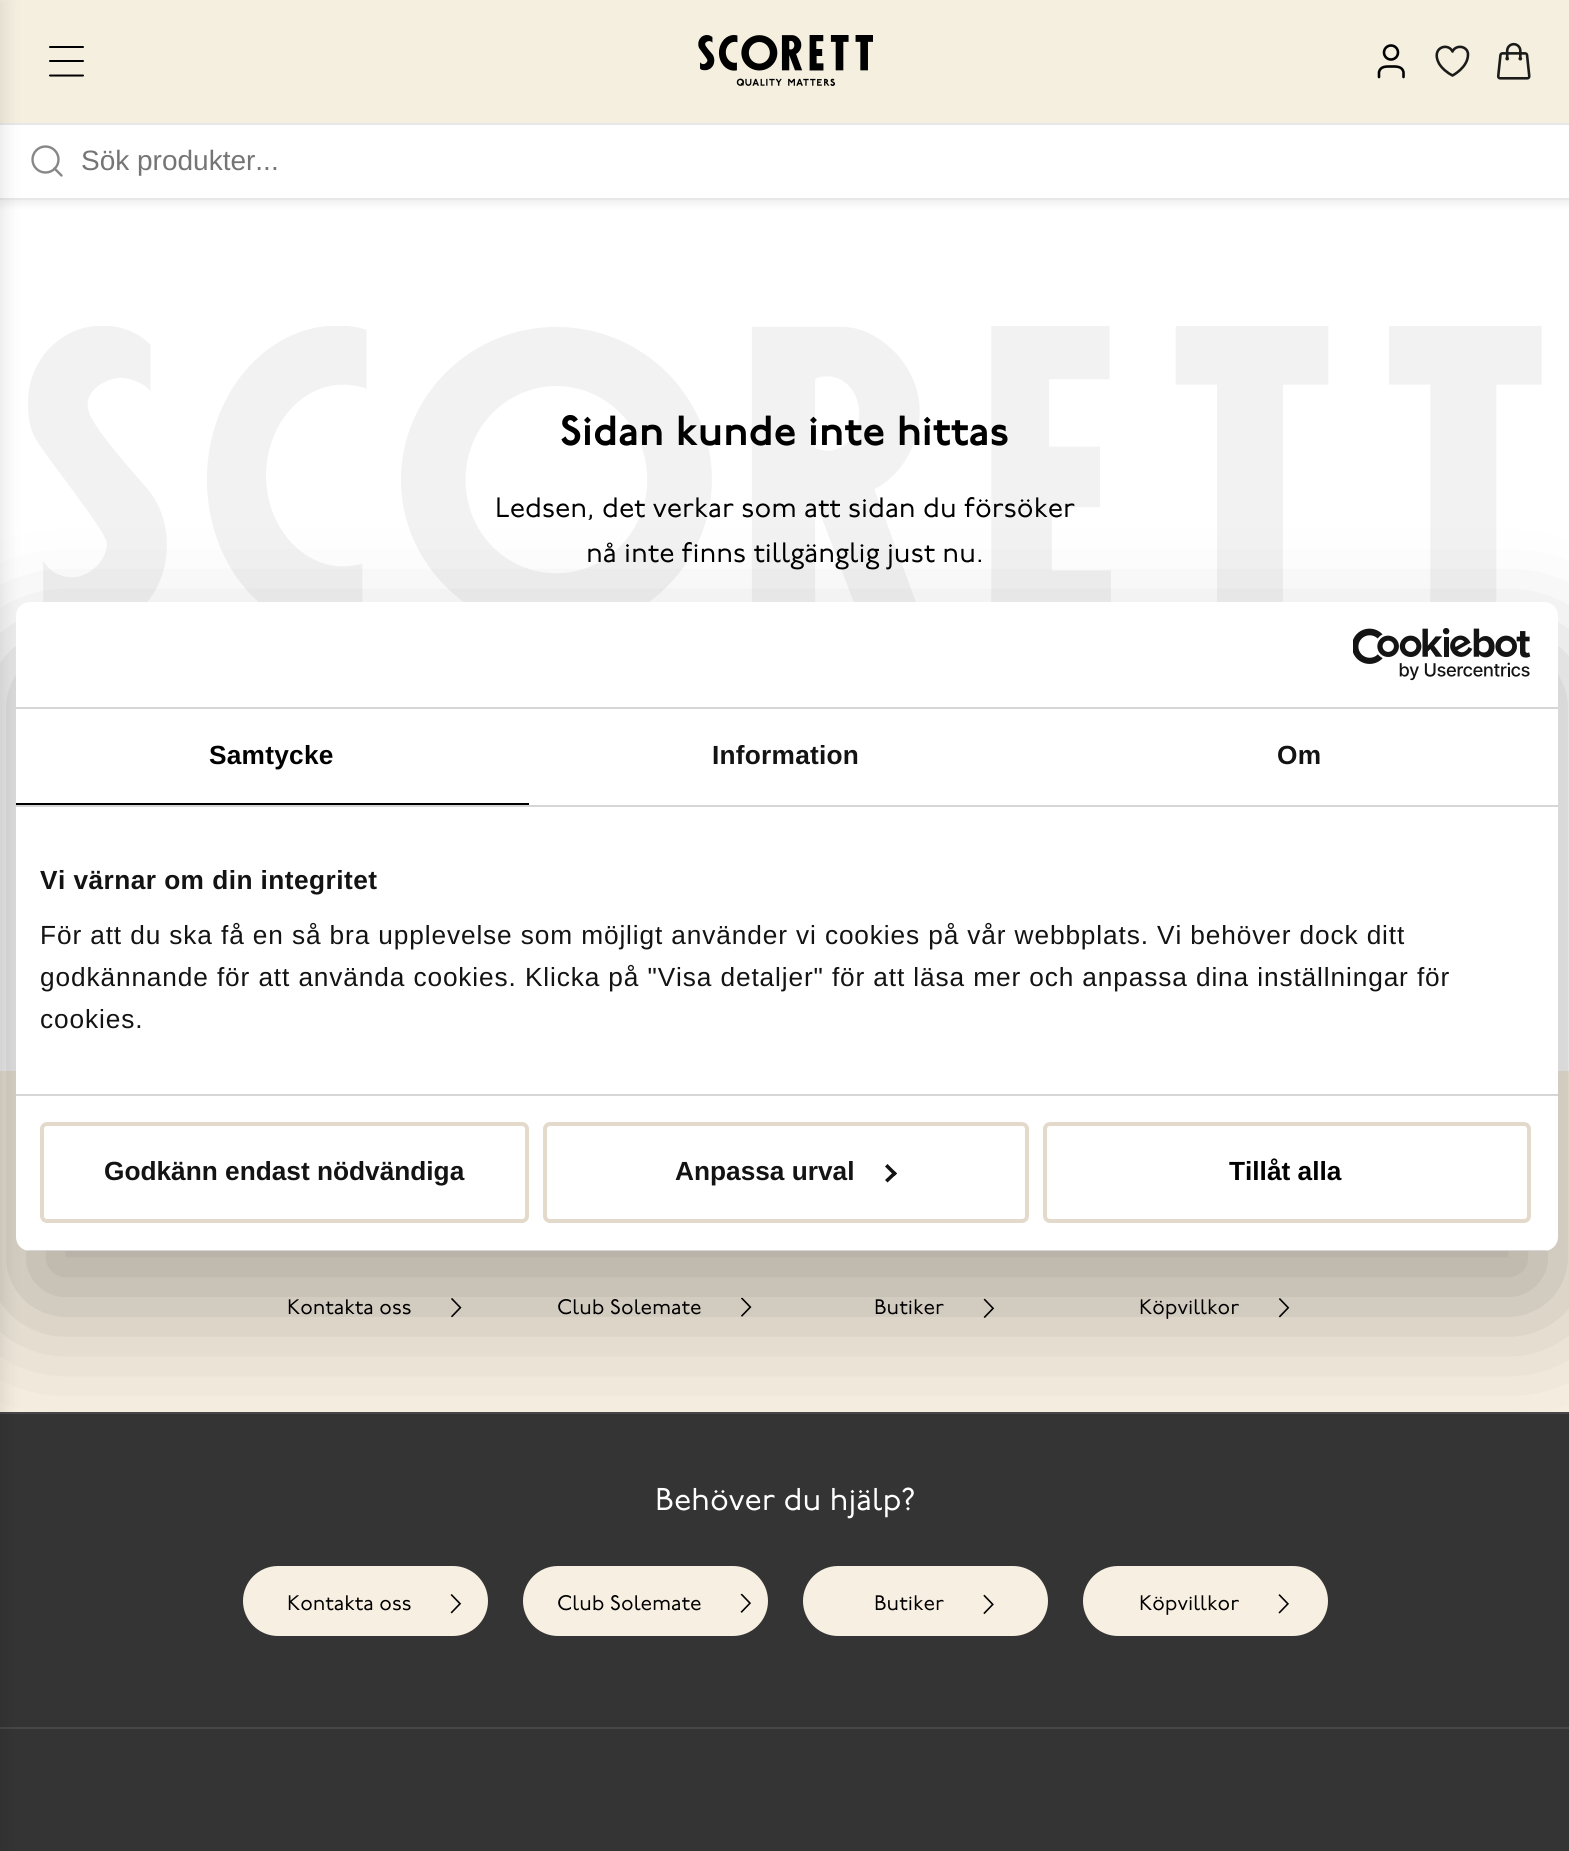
#include <cairo.h>
#include <math.h>
#include <stddef.h>


static void spaced_text(cairo_t *cr, double x, double y, const char *s, double letter, double word) {
    cairo_move_to(cr, x, y);
    while (*s) {
        char ch[5] = {0};
        int n = 0;
        do ch[n++] = *s++; while ((*s & 0xC0) == 0x80);
        cairo_show_text(cr, ch);
        cairo_rel_move_to(cr, letter + word * (*ch == ' '), 0);
    }
}

static void round_rect(cairo_t *cr, double x, double y, double w, double h, double r) {
    cairo_new_sub_path(cr);
    cairo_arc(cr, x + w - r, y + h - r, r, 0, M_PI / 2);
    cairo_arc(cr, x + r, y + h - r, r, M_PI / 2, M_PI);
    cairo_arc(cr, x + r, y + r, r, M_PI, 1.5 * M_PI);
    cairo_arc(cr, x + w - r, y + r, r, 1.5 * M_PI, 2 * M_PI);
    cairo_close_path(cr);
}

static void shadow(cairo_t *cr, double x, double y, double w, double h, double r, double blur, double alpha) {
    cairo_push_group_with_content(cr, CAIRO_CONTENT_ALPHA);
    cairo_set_operator(cr, CAIRO_OPERATOR_SOURCE);
    for (int i = 15; i >= -15 && fmin(w, h) + blur * i / 3 > 0; i -= 2) {
        double e = blur * i / 6;
        cairo_set_source_rgba(cr, 0, 0, 0, alpha * erfc((i - 1) / 8.5) / 2);
        round_rect(cr, x - e, y - e, w + 2 * e, h + 2 * e, fmax(0, fmin(r + e + blur * .6, fmin(w, h) / 2 + e)));
        cairo_fill(cr);
    }
    cairo_pattern_t *soft = cairo_pop_group(cr);
    cairo_mask(cr, soft);
    cairo_pattern_destroy(soft);
}

static void picture(cairo_t *cr, const char *path, double x, double y, double w, double h) {
    cairo_surface_t *image = cairo_image_surface_create_from_png(path);
    cairo_save(cr);
    cairo_set_source_surface(cr, image, x, y);
    cairo_rectangle(cr, x, y, w, h);
    cairo_fill(cr);
    cairo_restore(cr);
    cairo_surface_destroy(image);
}

int main(void) {
    cairo_surface_t *surface = cairo_image_surface_create(CAIRO_FORMAT_RGB24, 1569, 1851);
    cairo_t *cr = cairo_create(surface);
    cairo_font_options_t *options = cairo_font_options_create();
    cairo_font_options_set_hint_metrics(options, CAIRO_HINT_METRICS_OFF);
    cairo_font_options_set_hint_style(options, CAIRO_HINT_STYLE_NONE);
    cairo_set_font_options(cr, options);
    cairo_set_miter_limit(cr, 4);
    cairo_set_source_rgb(cr, 1, 1, 1);
    cairo_paint(cr);
    cairo_set_source_rgb(cr, 0, 0, 0);
    shadow(cr, 0, 126, 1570, 77, 0, 4.5, 0.08);
    cairo_set_source_rgb(cr, 0.957, 0.937, 0.875);
    cairo_rectangle(cr, 0, 0, 1569, 123);
    cairo_fill(cr);
    cairo_new_path(cr);
    cairo_move_to(cr, 50, 47);
    cairo_line_to(cr, 83, 47);
    cairo_move_to(cr, 50, 61);
    cairo_line_to(cr, 83, 61);
    cairo_move_to(cr, 50, 75.5);
    cairo_line_to(cr, 83, 75.5);
    cairo_set_source_rgb(cr, 0, 0, 0);
    cairo_set_line_cap(cr, CAIRO_LINE_CAP_ROUND);
    cairo_set_line_join(cr, CAIRO_LINE_JOIN_ROUND);
    cairo_stroke(cr);
    picture(cr, "img1.png", 698, 35, 175, 51);
    cairo_new_path(cr);
    cairo_move_to(cr, 1403.5, 77);
    cairo_line_to(cr, 1403.5, 72);
    cairo_curve_to(cr, 1402, 66, 1396, 66.5, 1391, 66.5);
    cairo_curve_to(cr, 1386.5, 66.5, 1380.5, 66, 1379, 72);
    cairo_line_to(cr, 1379, 77);
    cairo_set_line_width(cr, 2.6);
    cairo_stroke(cr);
    cairo_arc(cr, 1391, 52.5, 7, 0, 2 * M_PI);
    cairo_set_line_cap(cr, CAIRO_LINE_CAP_BUTT);
    cairo_set_line_join(cr, CAIRO_LINE_JOIN_MITER);
    cairo_stroke(cr);
    cairo_new_path(cr);
    cairo_move_to(cr, 1468, 54.5);
    cairo_curve_to(cr, 1468, 46, 1456, 44, 1452.5, 51.5);
    cairo_curve_to(cr, 1448, 42, 1430.5, 47.5, 1439, 63.5);
    cairo_curve_to(cr, 1442, 68.5, 1447.5, 73, 1452.5, 75.5);
    cairo_curve_to(cr, 1452.5, 75.5, 1468, 67.5, 1468, 54.5);
    cairo_close_path(cr);
    cairo_set_source_rgb(cr, 0.106, 0.106, 0.102);
    cairo_set_line_cap(cr, CAIRO_LINE_CAP_ROUND);
    cairo_set_line_join(cr, CAIRO_LINE_JOIN_ROUND);
    cairo_stroke(cr);
    picture(cr, "img2.png", 1497, 42, 34, 38);
    cairo_set_source_rgb(cr, 1, 1, 1);
    cairo_rectangle(cr, 0, 125, 1569, 73);
    cairo_fill(cr);
    cairo_set_source_rgb(cr, 0.91, 0.91, 0.91);
    cairo_rectangle(cr, 0, 123, 1569, 2);
    cairo_fill(cr);
    cairo_rectangle(cr, 0, 198, 1569, 2);
    cairo_fill(cr);
    cairo_new_path(cr);
    cairo_move_to(cr, 61.5, 175.5);
    cairo_line_to(cr, 54.5, 168.5);
    cairo_set_source_rgb(cr, 0.529, 0.529, 0.529);
    cairo_set_line_width(cr, 2.4);
    cairo_stroke(cr);
    cairo_arc(cr, 45.5, 159.5, 13, 0, 2 * M_PI);
    cairo_set_line_cap(cr, CAIRO_LINE_CAP_BUTT);
    cairo_set_line_join(cr, CAIRO_LINE_JOIN_MITER);
    cairo_stroke(cr);
    picture(cr, "img3.png", 28, 326, 1514, 276);
    cairo_set_source_rgb(cr, 0.965, 0.937, 0.882);
    cairo_rectangle(cr, 0, 1071, 1569, 341);
    cairo_fill(cr);
    cairo_set_source_rgb(cr, 0.204, 0.204, 0.204);
    cairo_rectangle(cr, 0, 1414, 1569, 437);
    cairo_fill(cr);
    cairo_set_source_rgb(cr, 0.278, 0.278, 0.278);
    cairo_rectangle(cr, 0, 1412, 1569, 2);
    cairo_fill(cr);
    cairo_rectangle(cr, 0, 1727, 1569, 2);
    cairo_fill(cr);
    cairo_set_source_rgb(cr, 0, 0, 0);
    shadow(cr, -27, 0, 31, 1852, 0, 9, 0.1);
    cairo_select_font_face(cr, "Liberation Sans", CAIRO_FONT_SLANT_NORMAL, CAIRO_FONT_WEIGHT_NORMAL);
    cairo_set_font_size(cr, 28);
    cairo_set_source_rgb(cr, 0.459, 0.459, 0.459);
    cairo_move_to(cr, 81, 170);
    cairo_show_text(cr, "Sök produkter...");
    cairo_select_font_face(cr, "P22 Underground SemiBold", CAIRO_FONT_SLANT_NORMAL, CAIRO_FONT_WEIGHT_NORMAL);
    cairo_set_font_size(cr, 42);
    cairo_set_source_rgb(cr, 0, 0, 0);
    cairo_move_to(cr, 560, 445);
    cairo_show_text(cr, "Sidan kunde inte hittas");
    cairo_select_font_face(cr, "P22 Underground", CAIRO_FONT_SLANT_NORMAL, CAIRO_FONT_WEIGHT_NORMAL);
    cairo_set_font_size(cr, 28);
    cairo_move_to(cr, 495, 517);
    cairo_show_text(cr, "Ledsen, det verkar som att sidan du försöker");
    cairo_move_to(cr, 586, 562);
    cairo_show_text(cr, "nå inte finns tillgänglig just nu.");
    cairo_set_font_size(cr, 21);
    cairo_move_to(cr, 287, 1314);
    cairo_show_text(cr, "Kontakta oss");
    picture(cr, "img4.png", 451, 1298, 11, 20);
    cairo_move_to(cr, 557, 1314);
    cairo_show_text(cr, "Club Solemate");
    picture(cr, "img5.png", 741, 1297, 11, 20);
    cairo_move_to(cr, 874, 1314);
    cairo_show_text(cr, "Butiker");
    picture(cr, "img6.png", 983, 1298, 12, 20);
    cairo_move_to(cr, 1139, 1314);
    cairo_show_text(cr, "Köpvillkor");
    picture(cr, "img7.png", 1278, 1298, 12, 20);
    cairo_set_font_size(cr, 31.5);
    cairo_set_source_rgb(cr, 1, 1, 1);
    cairo_move_to(cr, 655, 1510);
    cairo_show_text(cr, "Behöver du hjälp?");
    cairo_set_source_rgb(cr, 0.965, 0.937, 0.882);
    round_rect(cr, 243, 1566, 245, 70, 35);
    cairo_fill(cr);
    cairo_set_font_size(cr, 21);
    cairo_set_source_rgb(cr, 0, 0, 0);
    cairo_move_to(cr, 287, 1610);
    cairo_show_text(cr, "Kontakta oss");
    picture(cr, "img8.png", 450, 1594, 12, 20);
    cairo_set_source_rgb(cr, 0.965, 0.937, 0.882);
    round_rect(cr, 523, 1566, 245, 70, 35);
    cairo_fill(cr);
    cairo_set_source_rgb(cr, 0, 0, 0);
    cairo_move_to(cr, 557, 1610);
    cairo_show_text(cr, "Club Solemate");
    picture(cr, "img9.png", 740, 1593, 11, 20);
    cairo_set_source_rgb(cr, 0.965, 0.937, 0.882);
    round_rect(cr, 803, 1566, 245, 70, 35);
    cairo_fill(cr);
    cairo_set_source_rgb(cr, 0, 0, 0);
    cairo_move_to(cr, 874, 1610);
    cairo_show_text(cr, "Butiker");
    picture(cr, "img10.png", 983, 1594, 11, 21);
    cairo_set_source_rgb(cr, 0.965, 0.937, 0.882);
    round_rect(cr, 1083, 1566, 245, 70, 35);
    cairo_fill(cr);
    cairo_set_source_rgb(cr, 0, 0, 0);
    cairo_move_to(cr, 1139, 1610);
    cairo_show_text(cr, "Köpvillkor");
    picture(cr, "img11.png", 1278, 1594, 11, 20);
    cairo_set_source_rgb(cr, 0, 0, 0);
    shadow(cr, 16, 658, 1542, 649, 14, 59.5, 0.3);
    cairo_set_source_rgb(cr, 1, 1, 1);
    round_rect(cr, 16, 602, 1542, 649, 14);
    cairo_fill(cr);
    cairo_set_source_rgb(cr, 0.839, 0.839, 0.839);
    cairo_rectangle(cr, 16, 707, 1542, 2);
    cairo_fill(cr);
    picture(cr, "img12.png", 1353, 628, 178, 53);
    cairo_rectangle(cr, 16, 805, 1542, 2);
    cairo_fill(cr);
    cairo_set_source_rgb(cr, 0, 0, 0);
    cairo_rectangle(cr, 16, 803, 513, 2);
    cairo_fill(cr);
    cairo_select_font_face(cr, "Liberation Sans", CAIRO_FONT_SLANT_NORMAL, CAIRO_FONT_WEIGHT_BOLD);
    cairo_set_font_size(cr, 26.25);
    spaced_text(cr, 209, 764, "Samtycke", 0.25, 0);
    cairo_set_source_rgb(cr, 0.078, 0.078, 0.078);
    spaced_text(cr, 712, 764, "Information", 0.25, 0);
    spaced_text(cr, 1277, 764, "Om", 0.25, 0);
    cairo_set_source_rgb(cr, 0.839, 0.839, 0.839);
    cairo_rectangle(cr, 16, 1094, 1542, 2);
    cairo_fill(cr);
    cairo_set_source_rgb(cr, 0.078, 0.078, 0.078);
    spaced_text(cr, 40, 889, "Vi värnar om din integritet", 0.45, 0);
    cairo_select_font_face(cr, "Liberation Sans", CAIRO_FONT_SLANT_NORMAL, CAIRO_FONT_WEIGHT_NORMAL);
    spaced_text(cr, 40, 944, "För att du ska få en så bra upplevelse som möjligt använder vi cookies på vår webbplats. Vi behöver dock ditt", 0.88, 0);
    spaced_text(cr, 40, 986, "godkännande för att använda cookies. Klicka på \"Visa detaljer\" för att läsa mer och anpassa dina inställningar för", 0.88, 0);
    spaced_text(cr, 40, 1028, "cookies.", 0.88, 0);
    cairo_save(cr);
    round_rect(cr, 16, 602, 1542, 649, 14);
    cairo_clip(cr);
    cairo_set_source_rgb(cr, 0.839, 0.839, 0.839);
    cairo_rectangle(cr, 25, 1250, 1524, 1);
    cairo_fill(cr);
    cairo_restore(cr);
    round_rect(cr, 42, 1124, 485, 97, 5);
    cairo_set_source_rgb(cr, 0.894, 0.855, 0.796);
    cairo_set_line_width(cr, 4);
    cairo_stroke(cr);
    cairo_select_font_face(cr, "Liberation Sans", CAIRO_FONT_SLANT_NORMAL, CAIRO_FONT_WEIGHT_BOLD);
    cairo_set_source_rgb(cr, 0.078, 0.078, 0.078);
    cairo_move_to(cr, 104, 1180);
    cairo_show_text(cr, "Godkänn endast nödvändiga");
    round_rect(cr, 545, 1124, 482, 97, 5);
    cairo_set_source_rgb(cr, 0.894, 0.855, 0.796);
    cairo_stroke(cr);
    cairo_set_source_rgb(cr, 0.078, 0.078, 0.078);
    cairo_move_to(cr, 675, 1180);
    cairo_show_text(cr, "Anpassa urval");
    cairo_new_path(cr);
    cairo_move_to(cr, 887.5, 1164);
    cairo_line_to(cr, 897, 1173.5);
    cairo_line_to(cr, 894.5, 1176);
    cairo_line_to(cr, 885, 1166.5);
    cairo_close_path(cr);
    cairo_fill(cr);
    cairo_new_path(cr);
    cairo_move_to(cr, 894.5, 1171);
    cairo_line_to(cr, 897, 1173.5);
    cairo_line_to(cr, 887.5, 1182.5);
    cairo_line_to(cr, 885, 1180);
    cairo_close_path(cr);
    cairo_fill(cr);
    round_rect(cr, 1045, 1124, 484, 97, 5);
    cairo_set_source_rgb(cr, 0.894, 0.855, 0.796);
    cairo_stroke(cr);
    cairo_set_source_rgb(cr, 0, 0, 0);
    cairo_move_to(cr, 1229, 1180);
    cairo_show_text(cr, "Tillåt alla");
    cairo_surface_write_to_png(surface, "page.png");
    cairo_font_options_destroy(options);
    cairo_destroy(cr);
    cairo_surface_destroy(surface);
    return 0;
}
